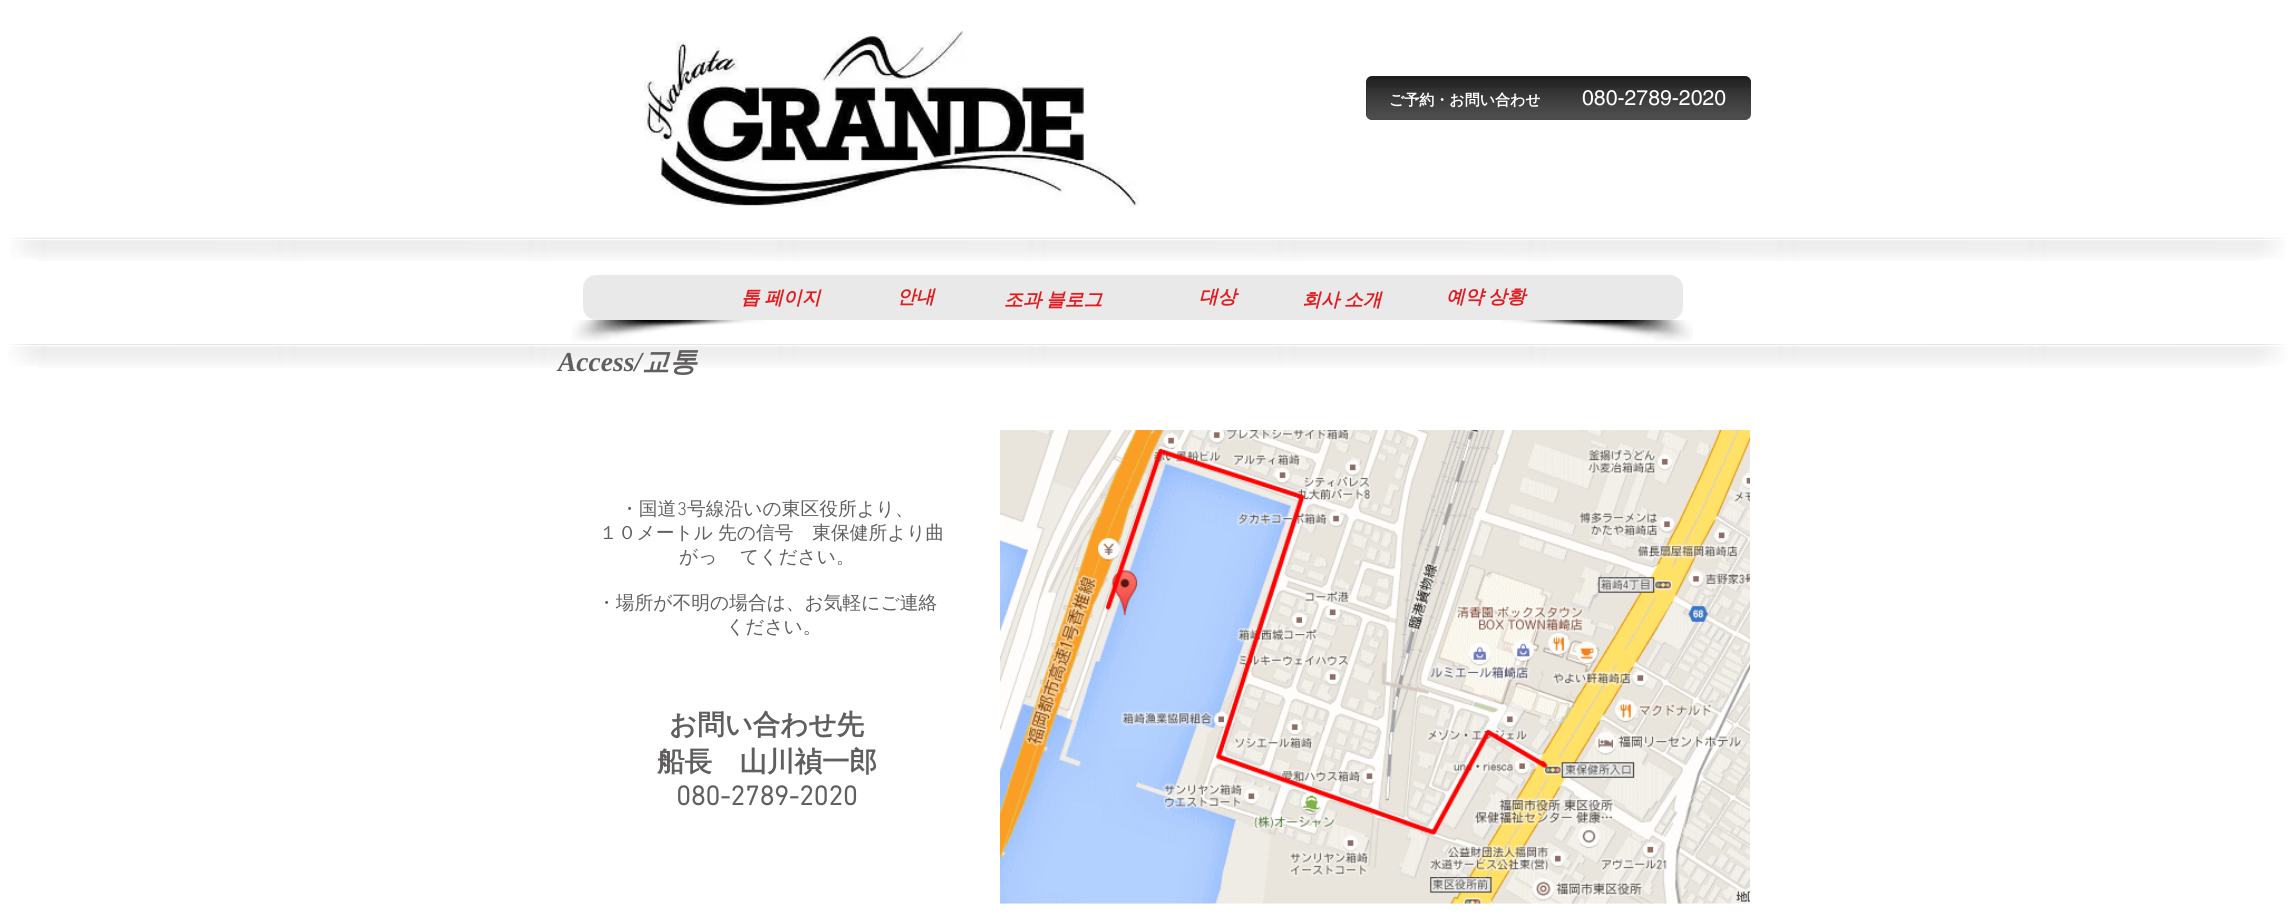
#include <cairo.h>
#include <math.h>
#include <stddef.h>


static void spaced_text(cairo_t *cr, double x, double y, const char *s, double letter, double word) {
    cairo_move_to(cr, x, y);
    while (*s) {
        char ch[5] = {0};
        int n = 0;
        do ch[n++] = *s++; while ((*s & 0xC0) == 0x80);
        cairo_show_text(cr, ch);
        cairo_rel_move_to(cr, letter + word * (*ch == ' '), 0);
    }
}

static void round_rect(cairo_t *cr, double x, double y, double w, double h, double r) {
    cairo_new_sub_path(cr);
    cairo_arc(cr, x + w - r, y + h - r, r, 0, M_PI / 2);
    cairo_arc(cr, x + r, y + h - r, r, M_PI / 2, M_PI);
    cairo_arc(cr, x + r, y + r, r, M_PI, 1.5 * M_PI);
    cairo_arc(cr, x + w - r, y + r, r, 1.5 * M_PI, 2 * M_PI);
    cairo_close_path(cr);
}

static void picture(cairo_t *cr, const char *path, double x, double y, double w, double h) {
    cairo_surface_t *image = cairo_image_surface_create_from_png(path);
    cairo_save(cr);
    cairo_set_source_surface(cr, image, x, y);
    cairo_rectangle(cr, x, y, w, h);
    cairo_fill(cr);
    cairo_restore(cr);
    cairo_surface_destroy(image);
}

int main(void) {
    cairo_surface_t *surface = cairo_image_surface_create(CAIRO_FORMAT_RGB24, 2295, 915);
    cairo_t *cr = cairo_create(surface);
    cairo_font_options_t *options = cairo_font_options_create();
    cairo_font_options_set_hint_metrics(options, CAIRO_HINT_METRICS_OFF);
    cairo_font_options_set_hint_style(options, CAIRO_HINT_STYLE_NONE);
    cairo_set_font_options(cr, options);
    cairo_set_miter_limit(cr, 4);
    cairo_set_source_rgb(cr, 1, 1, 1);
    cairo_paint(cr);
    picture(cr, "img1.png", 644, 31, 495, 176);
    cairo_set_source_rgb(cr, 0.137, 0.137, 0.137);
    round_rect(cr, 1366, 76, 385, 44, 6);
    cairo_fill(cr);
    picture(cr, "img2.png", 1367, 76, 384, 12);
    picture(cr, "img3.png", 1366, 79, 385, 41);
    cairo_select_font_face(cr, "WenQuanYi Zen Hei", CAIRO_FONT_SLANT_NORMAL, CAIRO_FONT_WEIGHT_BOLD);
    cairo_set_font_size(cr, 15);
    cairo_set_source_rgb(cr, 1, 1, 1);
    cairo_move_to(cr, 1389, 105);
    cairo_show_text(cr, "ご予約・お問い合わせ");
    cairo_select_font_face(cr, "helvetica", CAIRO_FONT_SLANT_NORMAL, CAIRO_FONT_WEIGHT_NORMAL);
    cairo_set_font_size(cr, 21.25);
    cairo_move_to(cr, 1582, 105);
    cairo_show_text(cr, "080-2789-2020");
    picture(cr, "img5.png", 37, 237, 2221, 24);
    picture(cr, "img4.png", 10, 237, 28, 22);
    picture(cr, "img6.png", 2257, 237, 28, 22);
    cairo_set_source_rgb(cr, 0.914, 0.914, 0.914);
    round_rect(cr, 583, 275, 1100, 45, 13);
    cairo_fill(cr);
    cairo_select_font_face(cr, "WenQuanYi Zen Hei", CAIRO_FONT_SLANT_ITALIC, CAIRO_FONT_WEIGHT_BOLD);
    cairo_set_font_size(cr, 18.75);
    cairo_set_source_rgb(cr, 0.886, 0.11, 0.129);
    spaced_text(cr, 741, 304, "톱 페이지", 0, -1);
    cairo_move_to(cr, 897, 303);
    cairo_show_text(cr, "안내");
    spaced_text(cr, 1004, 306, "조과 블로그", 0, -1);
    cairo_move_to(cr, 1199, 303);
    cairo_show_text(cr, "대상");
    spaced_text(cr, 1302, 306, "회사 소개", 0, -1);
    spaced_text(cr, 1446, 303, "예약 상황", 0, -1);
    picture(cr, "img7.png", 572, 320, 191, 22);
    picture(cr, "img8.png", 1502, 320, 191, 22);
    picture(cr, "img10.png", 37, 344, 2221, 24);
    picture(cr, "img9.png", 8, 344, 30, 22);
    picture(cr, "img11.png", 2257, 344, 30, 22);
    cairo_select_font_face(cr, "Liberation Serif", CAIRO_FONT_SLANT_ITALIC, CAIRO_FONT_WEIGHT_BOLD);
    cairo_set_font_size(cr, 27.5);
    cairo_set_source_rgb(cr, 0.376, 0.369, 0.369);
    cairo_move_to(cr, 558, 371);
    cairo_show_text(cr, "Access/");
    cairo_select_font_face(cr, "WenQuanYi Zen Hei", CAIRO_FONT_SLANT_ITALIC, CAIRO_FONT_WEIGHT_BOLD);
    cairo_move_to(cr, 642, 371);
    cairo_show_text(cr, "교통");
    cairo_select_font_face(cr, "WenQuanYi Zen Hei Medium", CAIRO_FONT_SLANT_NORMAL, CAIRO_FONT_WEIGHT_NORMAL);
    cairo_set_font_size(cr, 18.75);
    cairo_move_to(cr, 620, 515);
    cairo_show_text(cr, "・国道");
    cairo_select_font_face(cr, "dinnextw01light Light", CAIRO_FONT_SLANT_NORMAL, CAIRO_FONT_WEIGHT_NORMAL);
    cairo_move_to(cr, 677, 515);
    cairo_show_text(cr, "3");
    cairo_select_font_face(cr, "WenQuanYi Zen Hei Medium", CAIRO_FONT_SLANT_NORMAL, CAIRO_FONT_WEIGHT_NORMAL);
    cairo_move_to(cr, 687, 515);
    cairo_show_text(cr, "号線沿いの東区役所より、");
    cairo_move_to(cr, 599, 539);
    cairo_show_text(cr, "１０メートル");
    cairo_move_to(cr, 718, 539);
    cairo_show_text(cr, "先の信号　東保健所より曲");
    cairo_move_to(cr, 679, 563);
    cairo_show_text(cr, "がっ");
    cairo_move_to(cr, 740, 563);
    cairo_show_text(cr, "てください。");
    cairo_move_to(cr, 597, 609);
    cairo_show_text(cr, "・場所が不明の場合は、お気軽にご連絡");
    cairo_move_to(cr, 726, 633);
    cairo_show_text(cr, "ください。");
    cairo_select_font_face(cr, "WenQuanYi Zen Hei", CAIRO_FONT_SLANT_NORMAL, CAIRO_FONT_WEIGHT_BOLD);
    cairo_set_font_size(cr, 27.5);
    cairo_move_to(cr, 669, 734);
    cairo_show_text(cr, "お問い合わせ先");
    cairo_move_to(cr, 657, 771);
    cairo_show_text(cr, "船長　山川禎一郎");
    cairo_select_font_face(cr, "dinnextw01light", CAIRO_FONT_SLANT_NORMAL, CAIRO_FONT_WEIGHT_BOLD);
    cairo_move_to(cr, 676, 805);
    cairo_show_text(cr, "080-2789-2020");
    picture(cr, "img12.png", 1000, 430, 750, 474);
    cairo_surface_write_to_png(surface, "page.png");
    cairo_font_options_destroy(options);
    cairo_destroy(cr);
    cairo_surface_destroy(surface);
    return 0;
}
